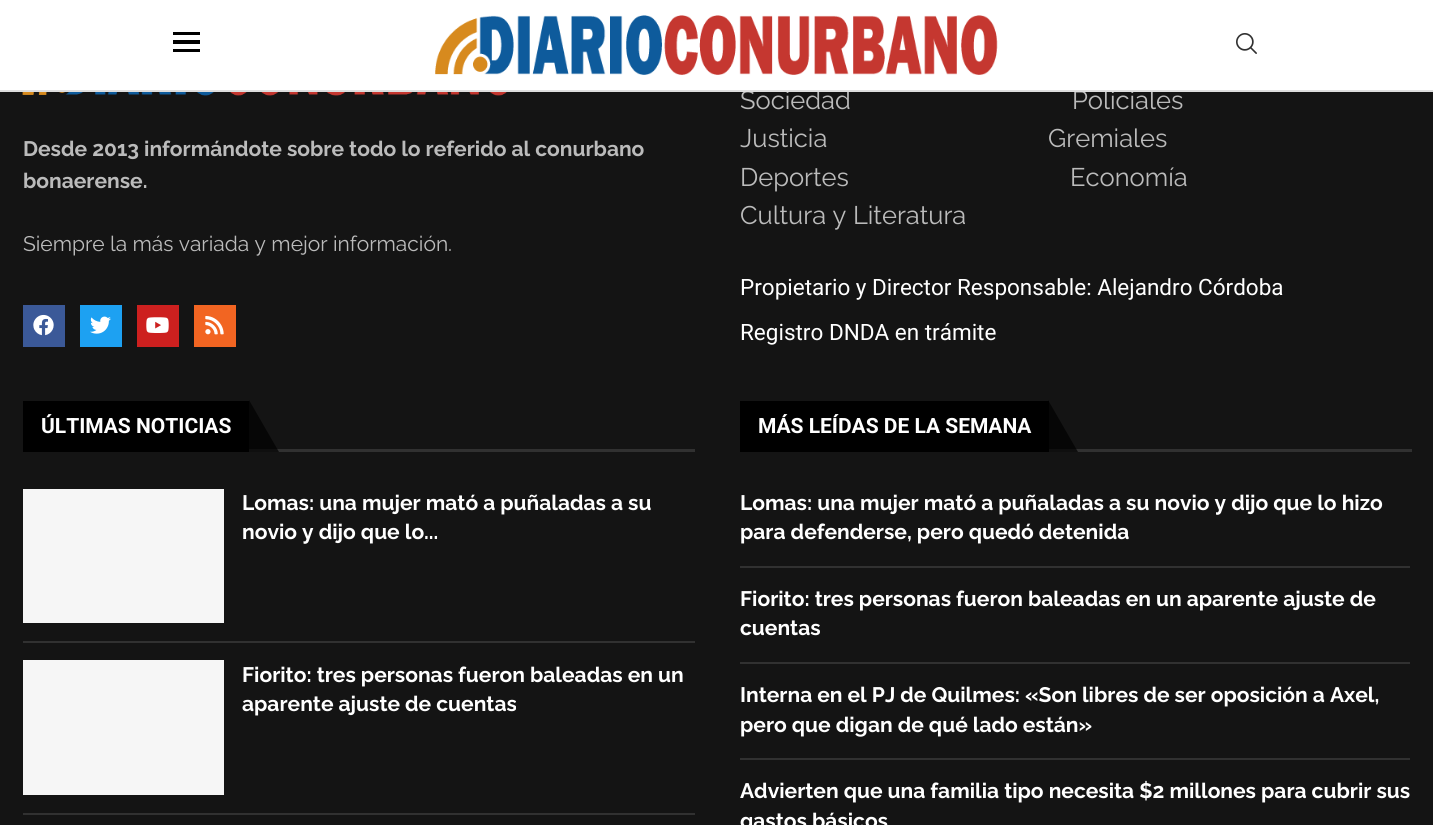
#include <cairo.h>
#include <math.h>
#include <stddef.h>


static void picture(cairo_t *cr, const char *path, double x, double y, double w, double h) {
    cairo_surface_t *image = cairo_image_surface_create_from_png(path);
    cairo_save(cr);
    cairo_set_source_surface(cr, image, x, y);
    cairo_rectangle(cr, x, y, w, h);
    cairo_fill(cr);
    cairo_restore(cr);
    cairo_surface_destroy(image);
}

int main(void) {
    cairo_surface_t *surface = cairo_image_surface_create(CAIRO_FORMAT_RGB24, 1433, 825);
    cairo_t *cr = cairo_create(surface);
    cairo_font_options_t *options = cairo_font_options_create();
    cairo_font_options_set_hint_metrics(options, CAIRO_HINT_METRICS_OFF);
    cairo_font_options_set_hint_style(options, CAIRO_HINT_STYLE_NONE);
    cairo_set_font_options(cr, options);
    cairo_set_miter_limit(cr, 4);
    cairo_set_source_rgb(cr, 0.082, 0.082, 0.082);
    cairo_paint(cr);
    cairo_set_source_rgb(cr, 1, 1, 1);
    cairo_rectangle(cr, 0, 0, 1433, 90);
    cairo_fill(cr);
    cairo_select_font_face(cr, "Raleway", CAIRO_FONT_SLANT_NORMAL, CAIRO_FONT_WEIGHT_NORMAL);
    cairo_set_font_size(cr, 25.5);
    cairo_set_source_rgb(cr, 0.733, 0.733, 0.733);
    cairo_move_to(cr, 740, 109);
    cairo_show_text(cr, "Sociedad");
    cairo_move_to(cr, 1072, 109);
    cairo_show_text(cr, "Policiales");
    cairo_set_source_rgb(cr, 0.871, 0.871, 0.871);
    cairo_rectangle(cr, 0, 90, 1433, 2);
    cairo_fill(cr);
    cairo_set_source_rgb(cr, 0, 0, 0);
    cairo_rectangle(cr, 173, 32, 27, 3);
    cairo_fill(cr);
    cairo_rectangle(cr, 173, 40, 27, 4);
    cairo_fill(cr);
    cairo_rectangle(cr, 173, 49, 27, 3);
    cairo_fill(cr);
    picture(cr, "img1.png", 435, 15, 563, 60);
    picture(cr, "img2.png", 1236, 33, 21, 21);
    picture(cr, "img3.png", 22, 92, 485, 4);
    cairo_select_font_face(cr, "Raleway", CAIRO_FONT_SLANT_NORMAL, CAIRO_FONT_WEIGHT_BOLD);
    cairo_set_font_size(cr, 21);
    cairo_set_source_rgb(cr, 0.733, 0.733, 0.733);
    cairo_move_to(cr, 23, 156);
    cairo_show_text(cr, "Desde 2013 informándote sobre todo lo referido al conurbano");
    cairo_move_to(cr, 23, 188);
    cairo_show_text(cr, "bonaerense.");
    cairo_select_font_face(cr, "Raleway", CAIRO_FONT_SLANT_NORMAL, CAIRO_FONT_WEIGHT_NORMAL);
    cairo_move_to(cr, 23, 251);
    cairo_show_text(cr, "Siempre la más variada y mejor información.");
    cairo_set_source_rgb(cr, 0.231, 0.349, 0.596);
    cairo_rectangle(cr, 23, 305, 42, 42);
    cairo_fill(cr);
    picture(cr, "img4.png", 33, 314, 21, 22);
    cairo_set_source_rgb(cr, 0.114, 0.631, 0.949);
    cairo_rectangle(cr, 80, 305, 42, 42);
    cairo_fill(cr);
    picture(cr, "img5.png", 90, 316, 21, 18);
    cairo_set_source_rgb(cr, 0.804, 0.125, 0.122);
    cairo_rectangle(cr, 137, 305, 42, 42);
    cairo_fill(cr);
    picture(cr, "img6.png", 146, 317, 23, 16);
    cairo_set_source_rgb(cr, 0.949, 0.396, 0.133);
    cairo_rectangle(cr, 194, 305, 42, 42);
    cairo_fill(cr);
    picture(cr, "img7.png", 205, 316, 19, 19);
    cairo_set_font_size(cr, 25.5);
    cairo_set_source_rgb(cr, 0.733, 0.733, 0.733);
    cairo_move_to(cr, 740, 147);
    cairo_show_text(cr, "Justicia");
    cairo_move_to(cr, 1048, 147);
    cairo_show_text(cr, "Gremiales");
    cairo_move_to(cr, 740, 186);
    cairo_show_text(cr, "Deportes");
    cairo_move_to(cr, 1070, 186);
    cairo_show_text(cr, "Economía");
    cairo_move_to(cr, 740, 224);
    cairo_show_text(cr, "Cultura y Literatura");
    cairo_select_font_face(cr, "Roboto", CAIRO_FONT_SLANT_NORMAL, CAIRO_FONT_WEIGHT_NORMAL);
    cairo_set_font_size(cr, 22.5);
    cairo_set_source_rgb(cr, 1, 1, 1);
    cairo_move_to(cr, 740, 295);
    cairo_show_text(cr, "Propietario y Director Responsable: Alejandro Córdoba");
    cairo_move_to(cr, 740, 340);
    cairo_show_text(cr, "Registro DNDA en trámite");
    cairo_set_source_rgb(cr, 0.192, 0.192, 0.192);
    cairo_rectangle(cr, 249, 449, 446, 3);
    cairo_fill(cr);
    cairo_set_source_rgb(cr, 0, 0, 0);
    cairo_rectangle(cr, 23, 401, 226, 51);
    cairo_fill(cr);
    cairo_select_font_face(cr, "Roboto", CAIRO_FONT_SLANT_NORMAL, CAIRO_FONT_WEIGHT_BOLD);
    cairo_set_font_size(cr, 21);
    cairo_set_source_rgb(cr, 1, 1, 1);
    cairo_move_to(cr, 41, 433);
    cairo_show_text(cr, "ÚLTIMAS NOTICIAS");
    cairo_set_source_rgba(cr, 0, 0, 0, 0.7);
    cairo_new_path(cr);
    cairo_move_to(cr, 279, 452);
    cairo_line_to(cr, 249, 452);
    cairo_line_to(cr, 249, 400);
    cairo_close_path(cr);
    cairo_fill(cr);
    cairo_set_source_rgb(cr, 0.192, 0.192, 0.192);
    cairo_rectangle(cr, 23, 641, 672, 2);
    cairo_fill(cr);
    cairo_set_source_rgb(cr, 0.961, 0.961, 0.961);
    cairo_rectangle(cr, 23, 489, 201, 134);
    cairo_fill(cr);
    cairo_select_font_face(cr, "Raleway", CAIRO_FONT_SLANT_NORMAL, CAIRO_FONT_WEIGHT_BOLD);
    cairo_set_source_rgb(cr, 1, 1, 1);
    cairo_move_to(cr, 242, 510);
    cairo_show_text(cr, "Lomas: una mujer mató a puñaladas a su");
    cairo_move_to(cr, 242, 539);
    cairo_show_text(cr, "novio y dijo que lo...");
    cairo_set_source_rgb(cr, 0.192, 0.192, 0.192);
    cairo_rectangle(cr, 23, 813, 672, 2);
    cairo_fill(cr);
    cairo_set_source_rgb(cr, 0.961, 0.961, 0.961);
    cairo_rectangle(cr, 23, 660, 201, 135);
    cairo_fill(cr);
    cairo_set_source_rgb(cr, 1, 1, 1);
    cairo_move_to(cr, 242, 682);
    cairo_show_text(cr, "Fiorito: tres personas fueron baleadas en un");
    cairo_move_to(cr, 242, 711);
    cairo_show_text(cr, "aparente ajuste de cuentas");
    cairo_set_source_rgb(cr, 0.192, 0.192, 0.192);
    cairo_rectangle(cr, 1049, 449, 363, 3);
    cairo_fill(cr);
    cairo_set_source_rgb(cr, 0, 0, 0);
    cairo_rectangle(cr, 740, 401, 309, 51);
    cairo_fill(cr);
    cairo_select_font_face(cr, "Roboto", CAIRO_FONT_SLANT_NORMAL, CAIRO_FONT_WEIGHT_BOLD);
    cairo_set_source_rgb(cr, 1, 1, 1);
    cairo_move_to(cr, 758, 433);
    cairo_show_text(cr, "MÁS LEÍDAS DE LA SEMANA");
    cairo_set_source_rgba(cr, 0, 0, 0, 0.7);
    cairo_new_path(cr);
    cairo_move_to(cr, 1078, 452);
    cairo_line_to(cr, 1048, 452);
    cairo_line_to(cr, 1048, 400);
    cairo_close_path(cr);
    cairo_fill(cr);
    cairo_set_source_rgb(cr, 0.192, 0.192, 0.192);
    cairo_rectangle(cr, 740, 566, 670, 2);
    cairo_fill(cr);
    cairo_select_font_face(cr, "Raleway", CAIRO_FONT_SLANT_NORMAL, CAIRO_FONT_WEIGHT_BOLD);
    cairo_set_source_rgb(cr, 1, 1, 1);
    cairo_move_to(cr, 740, 510);
    cairo_show_text(cr, "Lomas: una mujer mató a puñaladas a su novio y dijo que lo hizo");
    cairo_move_to(cr, 740, 539);
    cairo_show_text(cr, "para defenderse, pero quedó detenida");
    cairo_set_source_rgb(cr, 0.192, 0.192, 0.192);
    cairo_rectangle(cr, 740, 662, 670, 2);
    cairo_fill(cr);
    cairo_set_source_rgb(cr, 1, 1, 1);
    cairo_move_to(cr, 740, 606);
    cairo_show_text(cr, "Fiorito: tres personas fueron baleadas en un aparente ajuste de");
    cairo_move_to(cr, 740, 635);
    cairo_show_text(cr, "cuentas");
    cairo_set_source_rgb(cr, 0.192, 0.192, 0.192);
    cairo_rectangle(cr, 740, 758, 670, 2);
    cairo_fill(cr);
    cairo_set_source_rgb(cr, 1, 1, 1);
    cairo_move_to(cr, 740, 702);
    cairo_show_text(cr, "Interna en el PJ de Quilmes: «Son libres de ser oposición a Axel,");
    cairo_move_to(cr, 740, 732);
    cairo_show_text(cr, "pero que digan de qué lado están»");
    cairo_move_to(cr, 740, 798);
    cairo_show_text(cr, "Advierten que una familia tipo necesita $2 millones para cubrir sus");
    cairo_move_to(cr, 740, 828);
    cairo_show_text(cr, "gastos básicos");
    cairo_surface_write_to_png(surface, "page.png");
    cairo_font_options_destroy(options);
    cairo_destroy(cr);
    cairo_surface_destroy(surface);
    return 0;
}
